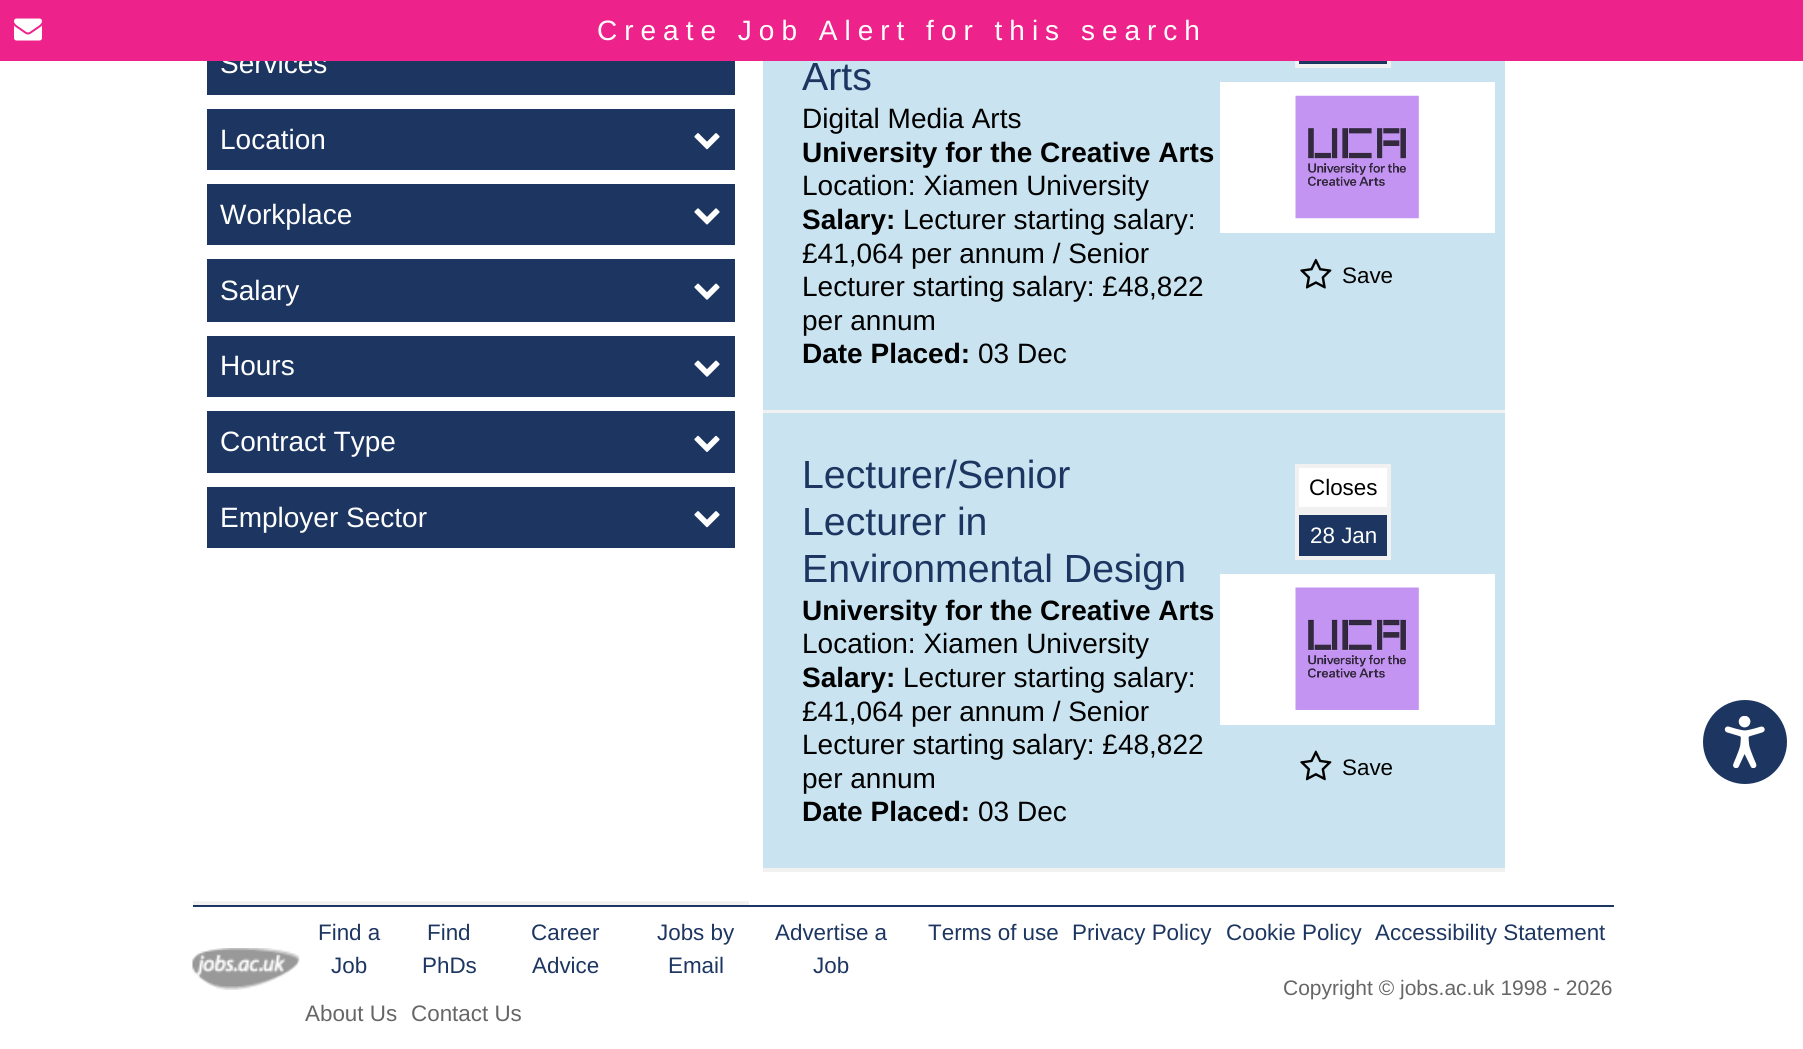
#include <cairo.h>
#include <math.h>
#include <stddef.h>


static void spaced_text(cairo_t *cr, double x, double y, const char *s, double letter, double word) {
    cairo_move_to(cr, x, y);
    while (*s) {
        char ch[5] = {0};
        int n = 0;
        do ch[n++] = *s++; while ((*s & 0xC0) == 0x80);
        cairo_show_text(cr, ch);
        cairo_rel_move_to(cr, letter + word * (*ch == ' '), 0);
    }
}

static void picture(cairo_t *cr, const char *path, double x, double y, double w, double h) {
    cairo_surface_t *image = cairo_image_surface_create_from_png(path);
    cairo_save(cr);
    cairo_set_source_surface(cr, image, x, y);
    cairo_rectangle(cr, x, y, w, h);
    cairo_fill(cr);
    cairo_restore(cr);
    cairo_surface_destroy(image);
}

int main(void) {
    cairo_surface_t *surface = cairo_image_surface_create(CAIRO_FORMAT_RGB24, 1803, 1049);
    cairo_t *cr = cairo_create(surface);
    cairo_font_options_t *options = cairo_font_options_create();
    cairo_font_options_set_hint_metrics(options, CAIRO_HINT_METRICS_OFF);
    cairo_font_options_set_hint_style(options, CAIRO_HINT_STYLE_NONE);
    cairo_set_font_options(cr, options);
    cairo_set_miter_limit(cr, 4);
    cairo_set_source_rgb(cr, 1, 1, 1);
    cairo_paint(cr);
    cairo_set_source_rgb(cr, 0.945, 0.945, 0.945);
    cairo_rectangle(cr, 193, 901, 556, 4);
    cairo_fill(cr);
    cairo_set_source_rgb(cr, 0.114, 0.212, 0.38);
    cairo_rectangle(cr, 207, 61, 528, 34);
    cairo_fill(cr);
    cairo_select_font_face(cr, "Liberation Sans", CAIRO_FONT_SLANT_NORMAL, CAIRO_FONT_WEIGHT_NORMAL);
    cairo_set_font_size(cr, 28);
    cairo_set_source_rgb(cr, 1, 1, 1);
    cairo_move_to(cr, 220, 73);
    cairo_show_text(cr, "Services");
    cairo_set_source_rgb(cr, 0.114, 0.212, 0.38);
    cairo_rectangle(cr, 207, 109, 528, 61);
    cairo_fill(cr);
    cairo_set_source_rgb(cr, 1, 1, 1);
    cairo_move_to(cr, 220, 149);
    cairo_show_text(cr, "Location");
    picture(cr, "img1.png", 694, 133, 26, 17);
    cairo_set_source_rgb(cr, 0.114, 0.212, 0.38);
    cairo_rectangle(cr, 207, 184, 528, 61);
    cairo_fill(cr);
    cairo_set_source_rgb(cr, 1, 1, 1);
    cairo_move_to(cr, 220, 224);
    cairo_show_text(cr, "Workplace");
    picture(cr, "img2.png", 694, 208, 26, 17);
    cairo_set_source_rgb(cr, 0.114, 0.212, 0.38);
    cairo_rectangle(cr, 207, 259, 528, 63);
    cairo_fill(cr);
    cairo_set_source_rgb(cr, 1, 1, 1);
    cairo_move_to(cr, 220, 300);
    cairo_show_text(cr, "Salary");
    picture(cr, "img3.png", 694, 283, 26, 17);
    cairo_set_source_rgb(cr, 0.114, 0.212, 0.38);
    cairo_rectangle(cr, 207, 336, 528, 61);
    cairo_fill(cr);
    cairo_set_source_rgb(cr, 1, 1, 1);
    cairo_move_to(cr, 220, 375);
    cairo_show_text(cr, "Hours");
    picture(cr, "img3.png", 694, 360, 26, 17);
    cairo_set_source_rgb(cr, 0.114, 0.212, 0.38);
    cairo_rectangle(cr, 207, 411, 528, 62);
    cairo_fill(cr);
    cairo_set_source_rgb(cr, 1, 1, 1);
    cairo_move_to(cr, 220, 451);
    cairo_show_text(cr, "Contract Type");
    picture(cr, "img4.png", 694, 435, 26, 17);
    cairo_set_source_rgb(cr, 0.114, 0.212, 0.38);
    cairo_rectangle(cr, 207, 487, 528, 61);
    cairo_fill(cr);
    cairo_set_source_rgb(cr, 1, 1, 1);
    cairo_move_to(cr, 220, 527);
    cairo_show_text(cr, "Employer Sector");
    picture(cr, "img1.png", 694, 511, 26, 17);
    cairo_set_source_rgb(cr, 0.788, 0.894, 0.941);
    cairo_rectangle(cr, 763, 61, 742, 349);
    cairo_fill(cr);
    cairo_set_source_rgb(cr, 0.114, 0.212, 0.38);
    cairo_rectangle(cr, 1299, 61, 88, 3);
    cairo_fill(cr);
    cairo_rectangle(cr, 1297, 21, 92, 45);
    cairo_set_source_rgb(cr, 0.945, 0.945, 0.945);
    cairo_set_line_width(cr, 4);
    cairo_stroke(cr);
    cairo_set_source_rgb(cr, 0.929, 0.137, 0.545);
    cairo_rectangle(cr, 0, 0, 1803, 61);
    cairo_fill(cr);
    picture(cr, "img5.png", 14, 18, 28, 23);
    cairo_set_source_rgb(cr, 1, 1, 1);
    spaced_text(cr, 597, 40, "Create Job Alert for this search", 7, 0);
    cairo_set_source_rgb(cr, 0.945, 0.945, 0.945);
    cairo_rectangle(cr, 763, 410, 742, 3);
    cairo_fill(cr);
    cairo_set_font_size(cr, 39.25);
    cairo_set_source_rgb(cr, 0.114, 0.212, 0.38);
    cairo_move_to(cr, 802, 90);
    cairo_show_text(cr, "Arts");
    cairo_set_font_size(cr, 28);
    cairo_set_source_rgb(cr, 0, 0, 0);
    cairo_move_to(cr, 802, 128);
    cairo_show_text(cr, "Digital Media Arts");
    cairo_select_font_face(cr, "Liberation Sans", CAIRO_FONT_SLANT_NORMAL, CAIRO_FONT_WEIGHT_BOLD);
    cairo_move_to(cr, 802, 162);
    cairo_show_text(cr, "University for the Creative Arts");
    cairo_select_font_face(cr, "Liberation Sans", CAIRO_FONT_SLANT_NORMAL, CAIRO_FONT_WEIGHT_NORMAL);
    cairo_move_to(cr, 802, 195);
    cairo_show_text(cr, "Location: Xiamen University");
    cairo_select_font_face(cr, "Liberation Sans", CAIRO_FONT_SLANT_NORMAL, CAIRO_FONT_WEIGHT_BOLD);
    cairo_move_to(cr, 802, 229);
    cairo_show_text(cr, "Salary:");
    cairo_select_font_face(cr, "Liberation Sans", CAIRO_FONT_SLANT_NORMAL, CAIRO_FONT_WEIGHT_NORMAL);
    cairo_move_to(cr, 903, 229);
    cairo_show_text(cr, "Lecturer starting salary:");
    cairo_move_to(cr, 802, 263);
    cairo_show_text(cr, "£41,064 per annum / Senior");
    cairo_move_to(cr, 802, 296);
    cairo_show_text(cr, "Lecturer starting salary: £48,822");
    cairo_move_to(cr, 802, 330);
    cairo_show_text(cr, "per annum");
    cairo_select_font_face(cr, "Liberation Sans", CAIRO_FONT_SLANT_NORMAL, CAIRO_FONT_WEIGHT_BOLD);
    cairo_move_to(cr, 802, 363);
    cairo_show_text(cr, "Date Placed:");
    cairo_select_font_face(cr, "Liberation Sans", CAIRO_FONT_SLANT_NORMAL, CAIRO_FONT_WEIGHT_NORMAL);
    cairo_move_to(cr, 978, 363);
    cairo_show_text(cr, "03 Dec");
    cairo_set_source_rgb(cr, 1, 1, 1);
    cairo_rectangle(cr, 1220, 82, 275, 151);
    cairo_fill(cr);
    picture(cr, "img6.png", 1295, 95, 125, 124);
    picture(cr, "img7.png", 1300, 258, 32, 31);
    cairo_set_font_size(cr, 22.4);
    cairo_set_source_rgb(cr, 0, 0, 0);
    cairo_move_to(cr, 1342, 283);
    cairo_show_text(cr, "Save");
    cairo_set_source_rgb(cr, 0.788, 0.894, 0.941);
    cairo_rectangle(cr, 763, 413, 742, 455);
    cairo_fill(cr);
    cairo_set_source_rgb(cr, 0.945, 0.945, 0.945);
    cairo_rectangle(cr, 763, 868, 742, 4);
    cairo_fill(cr);
    cairo_set_font_size(cr, 39.25);
    cairo_set_source_rgb(cr, 0.114, 0.212, 0.38);
    cairo_move_to(cr, 802, 488);
    cairo_show_text(cr, "Lecturer/Senior");
    cairo_move_to(cr, 802, 535);
    cairo_show_text(cr, "Lecturer in");
    cairo_move_to(cr, 802, 582);
    cairo_show_text(cr, "Environmental Design");
    cairo_select_font_face(cr, "Liberation Sans", CAIRO_FONT_SLANT_NORMAL, CAIRO_FONT_WEIGHT_BOLD);
    cairo_set_font_size(cr, 28);
    cairo_set_source_rgb(cr, 0, 0, 0);
    cairo_move_to(cr, 802, 620);
    cairo_show_text(cr, "University for the Creative Arts");
    cairo_select_font_face(cr, "Liberation Sans", CAIRO_FONT_SLANT_NORMAL, CAIRO_FONT_WEIGHT_NORMAL);
    cairo_move_to(cr, 802, 653);
    cairo_show_text(cr, "Location: Xiamen University");
    cairo_select_font_face(cr, "Liberation Sans", CAIRO_FONT_SLANT_NORMAL, CAIRO_FONT_WEIGHT_BOLD);
    cairo_move_to(cr, 802, 687);
    cairo_show_text(cr, "Salary:");
    cairo_select_font_face(cr, "Liberation Sans", CAIRO_FONT_SLANT_NORMAL, CAIRO_FONT_WEIGHT_NORMAL);
    cairo_move_to(cr, 903, 687);
    cairo_show_text(cr, "Lecturer starting salary:");
    cairo_move_to(cr, 802, 721);
    cairo_show_text(cr, "£41,064 per annum / Senior");
    cairo_move_to(cr, 802, 754);
    cairo_show_text(cr, "Lecturer starting salary: £48,822");
    cairo_move_to(cr, 802, 788);
    cairo_show_text(cr, "per annum");
    cairo_select_font_face(cr, "Liberation Sans", CAIRO_FONT_SLANT_NORMAL, CAIRO_FONT_WEIGHT_BOLD);
    cairo_move_to(cr, 802, 821);
    cairo_show_text(cr, "Date Placed:");
    cairo_select_font_face(cr, "Liberation Sans", CAIRO_FONT_SLANT_NORMAL, CAIRO_FONT_WEIGHT_NORMAL);
    cairo_move_to(cr, 978, 821);
    cairo_show_text(cr, "03 Dec");
    cairo_set_source_rgb(cr, 1, 1, 1);
    cairo_rectangle(cr, 1297, 466, 92, 43);
    cairo_fill_preserve(cr);
    cairo_set_source_rgb(cr, 0.945, 0.945, 0.945);
    cairo_stroke(cr);
    cairo_set_font_size(cr, 22.4);
    cairo_set_source_rgb(cr, 0, 0, 0);
    cairo_move_to(cr, 1309, 495);
    cairo_show_text(cr, "Closes");
    cairo_set_source_rgb(cr, 0.114, 0.212, 0.38);
    cairo_rectangle(cr, 1297, 513, 92, 45);
    cairo_fill_preserve(cr);
    cairo_set_source_rgb(cr, 0.945, 0.945, 0.945);
    cairo_stroke(cr);
    cairo_set_source_rgb(cr, 1, 1, 1);
    cairo_move_to(cr, 1310, 543);
    cairo_show_text(cr, "28 Jan");
    cairo_rectangle(cr, 1220, 574, 275, 151);
    cairo_fill(cr);
    picture(cr, "img8.png", 1295, 587, 125, 123);
    picture(cr, "img9.png", 1300, 750, 32, 31);
    cairo_set_source_rgb(cr, 0, 0, 0);
    cairo_move_to(cr, 1342, 775);
    cairo_show_text(cr, "Save");
    cairo_set_source_rgb(cr, 0.114, 0.212, 0.38);
    cairo_rectangle(cr, 193, 905, 1421, 2);
    cairo_fill(cr);
    picture(cr, "img10.png", 192, 948, 108, 42);
    cairo_move_to(cr, 318, 940);
    cairo_show_text(cr, "Find a");
    cairo_move_to(cr, 331, 973);
    cairo_show_text(cr, "Job");
    cairo_move_to(cr, 427, 940);
    cairo_show_text(cr, "Find");
    cairo_move_to(cr, 422, 973);
    cairo_show_text(cr, "PhDs");
    cairo_move_to(cr, 531, 940);
    cairo_show_text(cr, "Career");
    cairo_move_to(cr, 532, 973);
    cairo_show_text(cr, "Advice");
    cairo_move_to(cr, 657, 940);
    cairo_show_text(cr, "Jobs by");
    cairo_move_to(cr, 668, 973);
    cairo_show_text(cr, "Email");
    cairo_move_to(cr, 775, 940);
    cairo_show_text(cr, "Advertise a");
    cairo_move_to(cr, 813, 973);
    cairo_show_text(cr, "Job");
    cairo_set_source_rgb(cr, 0.4, 0.4, 0.4);
    cairo_move_to(cr, 305, 1021);
    cairo_show_text(cr, "About Us");
    cairo_move_to(cr, 411, 1021);
    cairo_show_text(cr, "Contact Us");
    cairo_set_source_rgb(cr, 0.114, 0.212, 0.38);
    cairo_move_to(cr, 928, 940);
    cairo_show_text(cr, "Terms of use");
    cairo_move_to(cr, 1072, 940);
    cairo_show_text(cr, "Privacy Policy");
    cairo_move_to(cr, 1226, 940);
    cairo_show_text(cr, "Cookie Policy");
    cairo_move_to(cr, 1375, 940);
    cairo_show_text(cr, "Accessibility Statement");
    cairo_set_font_size(cr, 21);
    cairo_set_source_rgb(cr, 0.4, 0.4, 0.4);
    cairo_move_to(cr, 1283, 995);
    cairo_show_text(cr, "Copyright © jobs.ac.uk 1998 - 2026");
    cairo_set_source_rgb(cr, 0.114, 0.212, 0.38);
    cairo_new_path(cr);
    cairo_arc(cr, 1745, 742, 42, 0, 2 * M_PI);
    cairo_fill(cr);
    picture(cr, "img11.png", 1724, 716, 41, 52);
    cairo_surface_write_to_png(surface, "page.png");
    cairo_font_options_destroy(options);
    cairo_destroy(cr);
    cairo_surface_destroy(surface);
    return 0;
}
